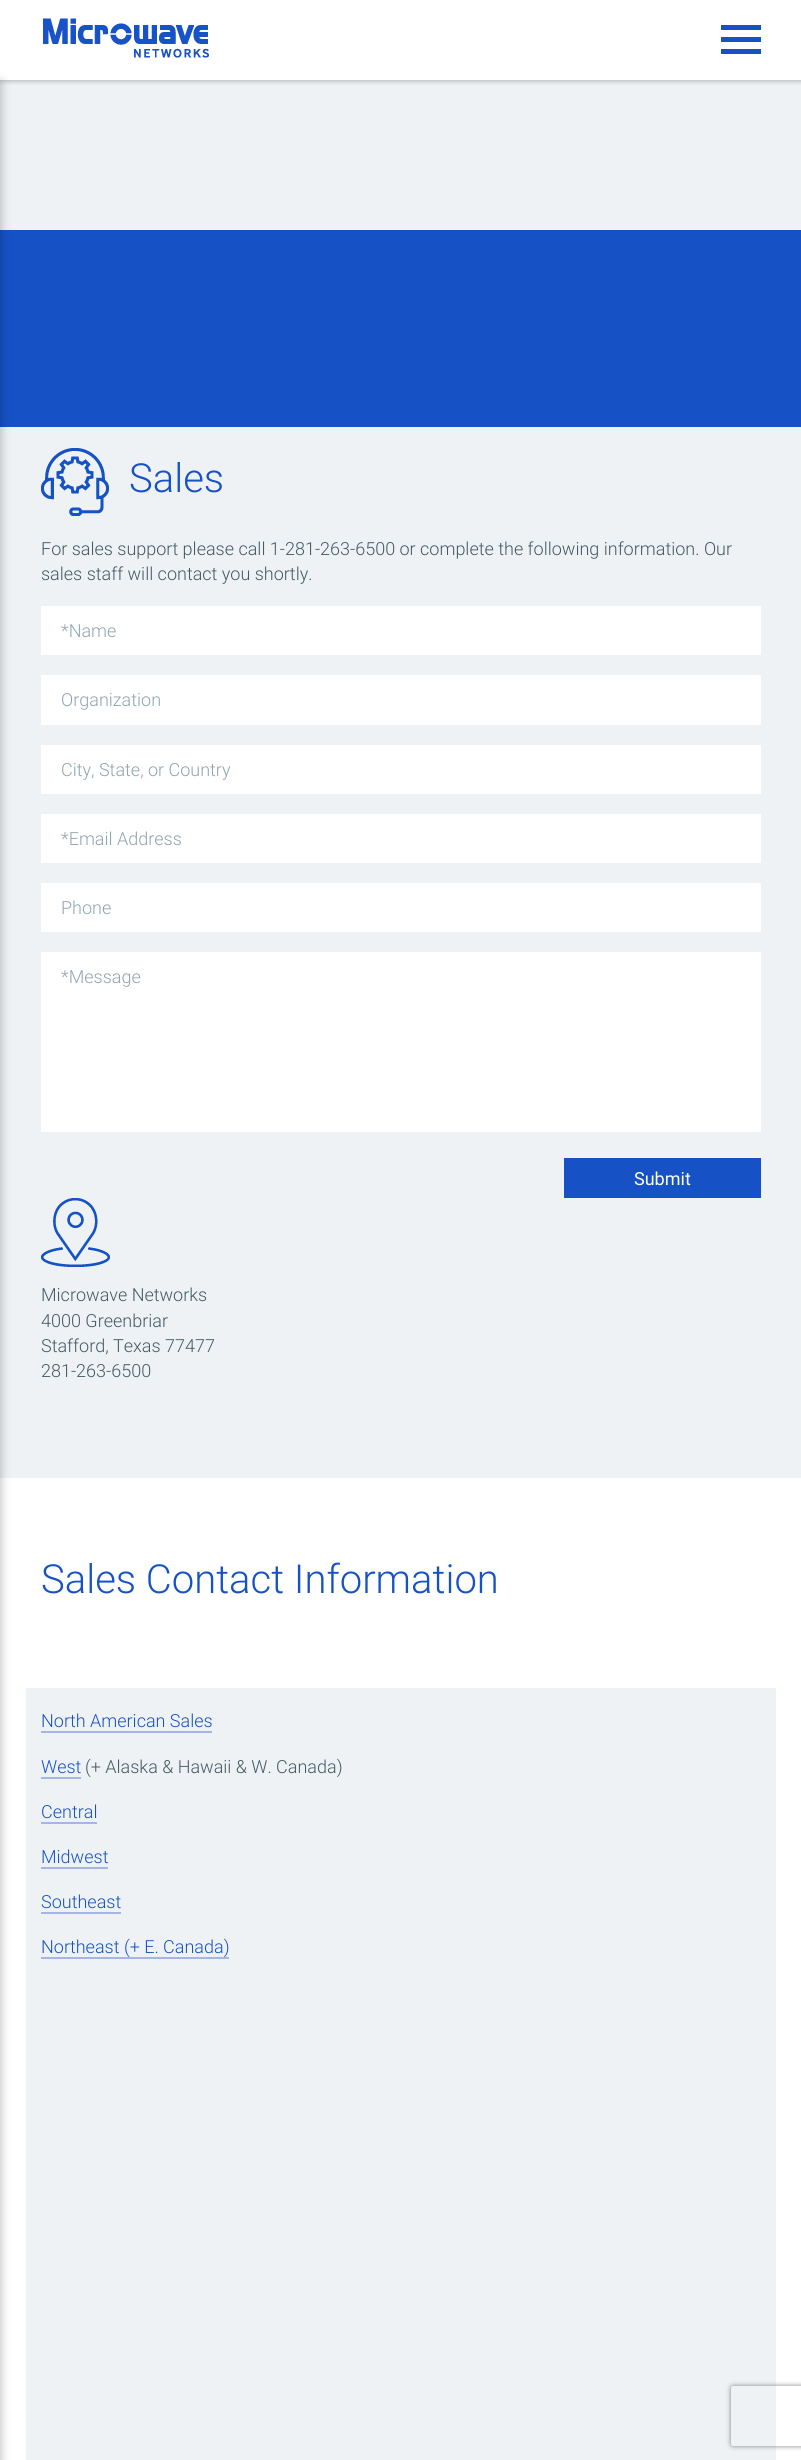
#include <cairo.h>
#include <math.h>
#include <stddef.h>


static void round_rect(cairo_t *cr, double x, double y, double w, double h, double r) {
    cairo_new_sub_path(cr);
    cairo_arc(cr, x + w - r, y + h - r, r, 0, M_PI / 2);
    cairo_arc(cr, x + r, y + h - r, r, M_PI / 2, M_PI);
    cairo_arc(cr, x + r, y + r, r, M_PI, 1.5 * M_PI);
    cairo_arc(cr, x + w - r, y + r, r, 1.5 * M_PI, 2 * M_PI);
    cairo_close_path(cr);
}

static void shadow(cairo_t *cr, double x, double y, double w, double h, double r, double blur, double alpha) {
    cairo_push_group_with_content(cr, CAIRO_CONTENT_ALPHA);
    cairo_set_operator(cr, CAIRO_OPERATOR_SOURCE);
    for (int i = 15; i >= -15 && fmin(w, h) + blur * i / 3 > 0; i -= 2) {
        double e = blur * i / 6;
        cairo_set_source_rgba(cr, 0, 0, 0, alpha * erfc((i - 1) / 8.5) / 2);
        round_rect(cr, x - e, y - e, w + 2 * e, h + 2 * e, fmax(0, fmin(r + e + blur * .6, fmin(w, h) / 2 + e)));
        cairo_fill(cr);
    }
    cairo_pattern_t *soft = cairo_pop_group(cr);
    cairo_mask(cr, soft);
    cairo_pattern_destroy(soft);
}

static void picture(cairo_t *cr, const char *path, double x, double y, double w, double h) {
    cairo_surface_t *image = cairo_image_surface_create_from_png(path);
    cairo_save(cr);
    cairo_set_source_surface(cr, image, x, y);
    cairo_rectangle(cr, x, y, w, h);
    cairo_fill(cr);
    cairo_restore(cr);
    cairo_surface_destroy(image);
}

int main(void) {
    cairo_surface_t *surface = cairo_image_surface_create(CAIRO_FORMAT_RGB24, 801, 2460);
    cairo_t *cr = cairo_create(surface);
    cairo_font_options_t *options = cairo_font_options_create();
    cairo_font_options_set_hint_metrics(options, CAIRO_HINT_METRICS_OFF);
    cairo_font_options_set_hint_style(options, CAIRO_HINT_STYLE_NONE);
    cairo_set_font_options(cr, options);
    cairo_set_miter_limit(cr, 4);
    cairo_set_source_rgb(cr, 1, 1, 1);
    cairo_paint(cr);
    cairo_set_source_rgb(cr, 0.933, 0.949, 0.957);
    cairo_rectangle(cr, 0, 80, 801, 1398);
    cairo_fill(cr);
    cairo_save(cr);
    cairo_rectangle(cr, 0, 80, 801, 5);
    cairo_clip(cr);
    cairo_set_source_rgb(cr, 0, 0, 0);
    shadow(cr, -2, -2, 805, 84, 0, 2, 0.2);
    cairo_restore(cr);
    picture(cr, "img1.png", 43, 18, 166, 40);
    cairo_set_source_rgb(cr, 0.086, 0.322, 0.776);
    cairo_rectangle(cr, 0, 230, 801, 197);
    cairo_fill(cr);
    cairo_set_source_rgb(cr, 0, 0, 0);
    shadow(cr, -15, 82, 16, 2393, 0, 5, 0.25);
    cairo_set_source_rgb(cr, 0.086, 0.322, 0.776);
    cairo_rectangle(cr, 721, 25, 40, 5);
    cairo_fill(cr);
    cairo_rectangle(cr, 721, 37, 40, 5);
    cairo_fill(cr);
    cairo_rectangle(cr, 721, 49, 40, 5);
    cairo_fill(cr);
    picture(cr, "img2.png", 41, 448, 68, 68);
    cairo_select_font_face(cr, "Roboto Light", CAIRO_FONT_SLANT_NORMAL, CAIRO_FONT_WEIGHT_NORMAL);
    cairo_set_font_size(cr, 40);
    cairo_move_to(cr, 129, 492);
    cairo_show_text(cr, "Sales");
    cairo_set_font_size(cr, 18);
    cairo_set_source_rgb(cr, 0.271, 0.353, 0.392);
    cairo_move_to(cr, 41, 555);
    cairo_show_text(cr, "For sales support please call 1-281-263-6500 or complete the following information. Our");
    cairo_move_to(cr, 41, 580);
    cairo_show_text(cr, "sales staff will contact you shortly.");
    cairo_set_source_rgb(cr, 1, 1, 1);
    cairo_rectangle(cr, 41, 606, 720, 49);
    cairo_fill(cr);
    cairo_set_source_rgb(cr, 0.565, 0.643, 0.682);
    cairo_move_to(cr, 61, 637);
    cairo_show_text(cr, "*Name");
    cairo_set_source_rgb(cr, 1, 1, 1);
    cairo_rectangle(cr, 41, 675, 720, 50);
    cairo_fill(cr);
    cairo_set_source_rgb(cr, 0.565, 0.643, 0.682);
    cairo_move_to(cr, 61, 706);
    cairo_show_text(cr, "Organization");
    cairo_set_source_rgb(cr, 1, 1, 1);
    cairo_rectangle(cr, 41, 745, 720, 49);
    cairo_fill(cr);
    cairo_set_source_rgb(cr, 0.565, 0.643, 0.682);
    cairo_move_to(cr, 61, 776);
    cairo_show_text(cr, "City, State, or Country");
    cairo_set_source_rgb(cr, 1, 1, 1);
    cairo_rectangle(cr, 41, 814, 720, 49);
    cairo_fill(cr);
    cairo_set_source_rgb(cr, 0.565, 0.643, 0.682);
    cairo_move_to(cr, 61, 845);
    cairo_show_text(cr, "*Email Address");
    cairo_set_source_rgb(cr, 1, 1, 1);
    cairo_rectangle(cr, 41, 883, 720, 49);
    cairo_fill(cr);
    cairo_set_source_rgb(cr, 0.565, 0.643, 0.682);
    cairo_move_to(cr, 61, 914);
    cairo_show_text(cr, "Phone");
    cairo_set_source_rgb(cr, 1, 1, 1);
    cairo_rectangle(cr, 41, 952, 720, 180);
    cairo_fill(cr);
    cairo_set_source_rgb(cr, 0.565, 0.643, 0.682);
    cairo_move_to(cr, 61, 983);
    cairo_show_text(cr, "*Message");
    cairo_set_source_rgb(cr, 0.086, 0.322, 0.776);
    cairo_rectangle(cr, 564, 1158, 197, 40);
    cairo_fill(cr);
    cairo_select_font_face(cr, "Roboto", CAIRO_FONT_SLANT_NORMAL, CAIRO_FONT_WEIGHT_NORMAL);
    cairo_set_source_rgb(cr, 1, 1, 1);
    cairo_move_to(cr, 634, 1185);
    cairo_show_text(cr, "Submit");
    picture(cr, "img3.png", 41, 1198, 69, 69);
    cairo_select_font_face(cr, "Roboto Light", CAIRO_FONT_SLANT_NORMAL, CAIRO_FONT_WEIGHT_NORMAL);
    cairo_set_source_rgb(cr, 0.271, 0.353, 0.392);
    cairo_move_to(cr, 41, 1301);
    cairo_show_text(cr, "Microwave Networks");
    cairo_move_to(cr, 41, 1327);
    cairo_show_text(cr, "4000 Greenbriar");
    cairo_move_to(cr, 41, 1352);
    cairo_show_text(cr, "Stafford, Texas 77477");
    cairo_move_to(cr, 41, 1377);
    cairo_show_text(cr, "281-263-6500");
    cairo_set_font_size(cr, 40);
    cairo_set_source_rgb(cr, 0.086, 0.322, 0.776);
    cairo_move_to(cr, 41, 1593);
    cairo_show_text(cr, "Sales Contact Information");
    cairo_set_source_rgb(cr, 0.933, 0.949, 0.957);
    cairo_rectangle(cr, 26, 1688, 750, 772);
    cairo_fill(cr);
    cairo_set_font_size(cr, 18);
    cairo_set_source_rgb(cr, 0.086, 0.322, 0.776);
    cairo_move_to(cr, 41, 1727);
    cairo_show_text(cr, "North American Sales");
    cairo_set_source_rgb(cr, 0.651, 0.71, 0.89);
    cairo_rectangle(cr, 41, 1731, 171, 2);
    cairo_fill(cr);
    cairo_set_source_rgb(cr, 0.086, 0.322, 0.776);
    cairo_move_to(cr, 41, 1773);
    cairo_show_text(cr, "West");
    cairo_set_source_rgb(cr, 0.651, 0.71, 0.89);
    cairo_rectangle(cr, 41, 1777, 40, 2);
    cairo_fill(cr);
    cairo_set_source_rgb(cr, 0.271, 0.353, 0.392);
    cairo_move_to(cr, 85, 1773);
    cairo_show_text(cr, "(+ Alaska & Hawaii & W. Canada)");
    cairo_set_source_rgb(cr, 0.086, 0.322, 0.776);
    cairo_move_to(cr, 41, 1818);
    cairo_show_text(cr, "Central");
    cairo_set_source_rgb(cr, 0.651, 0.71, 0.89);
    cairo_rectangle(cr, 41, 1822, 56, 2);
    cairo_fill(cr);
    cairo_set_source_rgb(cr, 0.086, 0.322, 0.776);
    cairo_move_to(cr, 41, 1863);
    cairo_show_text(cr, "Midwest");
    cairo_set_source_rgb(cr, 0.651, 0.71, 0.89);
    cairo_rectangle(cr, 41, 1867, 67, 2);
    cairo_fill(cr);
    cairo_set_source_rgb(cr, 0.086, 0.322, 0.776);
    cairo_move_to(cr, 41, 1908);
    cairo_show_text(cr, "Southeast");
    cairo_set_source_rgb(cr, 0.651, 0.71, 0.89);
    cairo_rectangle(cr, 41, 1912, 80, 2);
    cairo_fill(cr);
    cairo_rectangle(cr, 41, 1957, 188, 2);
    cairo_fill(cr);
    cairo_set_source_rgb(cr, 0.086, 0.322, 0.776);
    cairo_move_to(cr, 41, 1953);
    cairo_show_text(cr, "Northeast (+ E. Canada)");
    cairo_save(cr);
    cairo_set_fill_rule(cr, CAIRO_FILL_RULE_EVEN_ODD);
    cairo_new_path(cr);
    cairo_move_to(cr, 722, 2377);
    cairo_line_to(cr, 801, 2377);
    cairo_line_to(cr, 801, 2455);
    cairo_line_to(cr, 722, 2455);
    cairo_close_path(cr);
    cairo_move_to(cr, 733, 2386);
    cairo_line_to(cr, 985, 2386);
    cairo_curve_to(cr, 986, 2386, 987, 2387, 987, 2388);
    cairo_line_to(cr, 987, 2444);
    cairo_curve_to(cr, 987, 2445, 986, 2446, 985, 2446);
    cairo_line_to(cr, 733, 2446);
    cairo_curve_to(cr, 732, 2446, 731, 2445, 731, 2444);
    cairo_line_to(cr, 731, 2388);
    cairo_curve_to(cr, 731, 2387, 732, 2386, 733, 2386);
    cairo_close_path(cr);
    cairo_clip(cr);
    cairo_set_source_rgb(cr, 0.502, 0.502, 0.502);
    shadow(cr, 731, 2386, 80, 60, 2, 2.5, 1);
    cairo_restore(cr);
    cairo_surface_write_to_png(surface, "page.png");
    cairo_font_options_destroy(options);
    cairo_destroy(cr);
    cairo_surface_destroy(surface);
    return 0;
}
